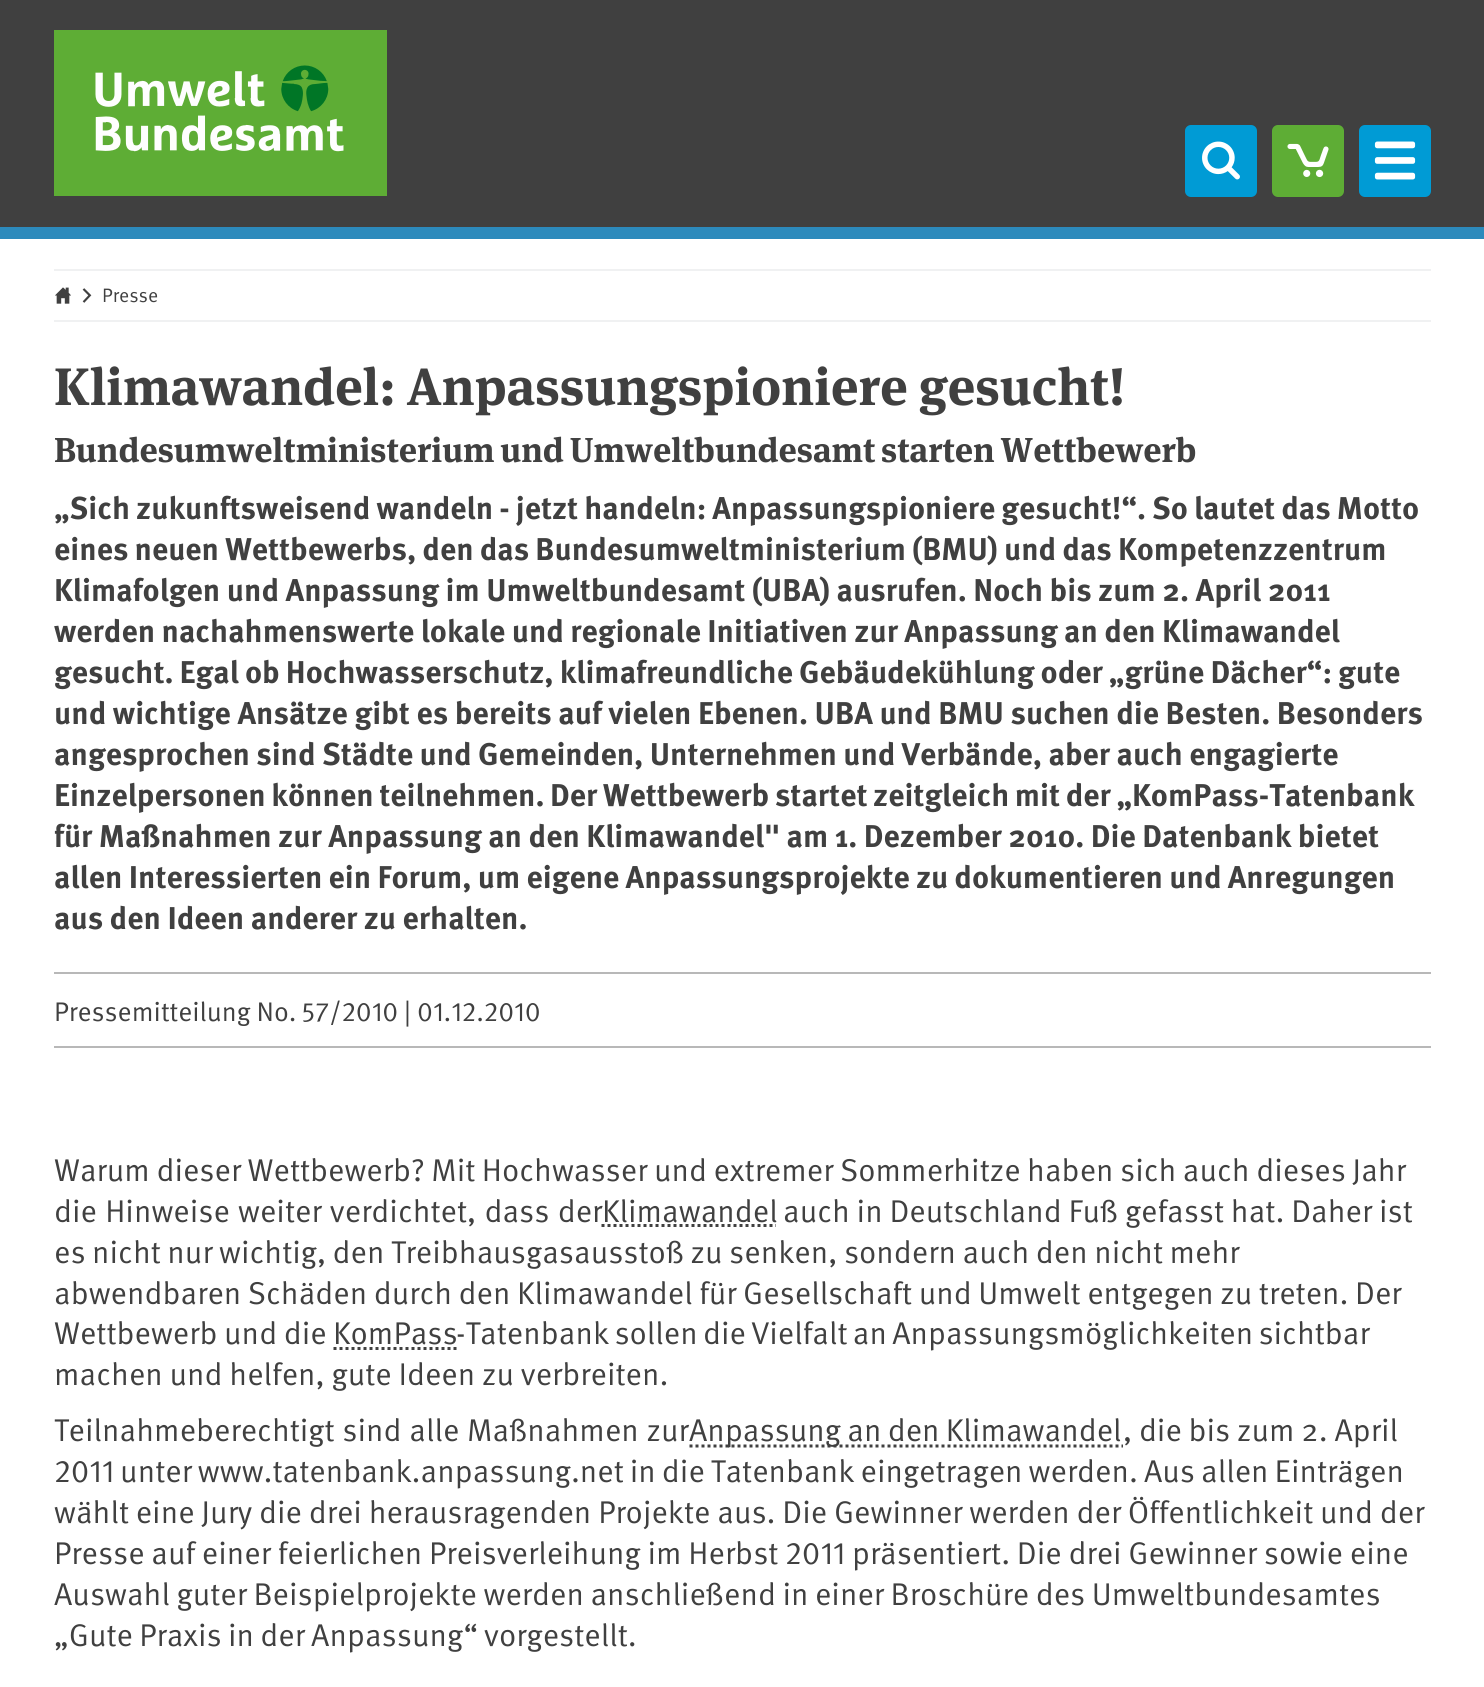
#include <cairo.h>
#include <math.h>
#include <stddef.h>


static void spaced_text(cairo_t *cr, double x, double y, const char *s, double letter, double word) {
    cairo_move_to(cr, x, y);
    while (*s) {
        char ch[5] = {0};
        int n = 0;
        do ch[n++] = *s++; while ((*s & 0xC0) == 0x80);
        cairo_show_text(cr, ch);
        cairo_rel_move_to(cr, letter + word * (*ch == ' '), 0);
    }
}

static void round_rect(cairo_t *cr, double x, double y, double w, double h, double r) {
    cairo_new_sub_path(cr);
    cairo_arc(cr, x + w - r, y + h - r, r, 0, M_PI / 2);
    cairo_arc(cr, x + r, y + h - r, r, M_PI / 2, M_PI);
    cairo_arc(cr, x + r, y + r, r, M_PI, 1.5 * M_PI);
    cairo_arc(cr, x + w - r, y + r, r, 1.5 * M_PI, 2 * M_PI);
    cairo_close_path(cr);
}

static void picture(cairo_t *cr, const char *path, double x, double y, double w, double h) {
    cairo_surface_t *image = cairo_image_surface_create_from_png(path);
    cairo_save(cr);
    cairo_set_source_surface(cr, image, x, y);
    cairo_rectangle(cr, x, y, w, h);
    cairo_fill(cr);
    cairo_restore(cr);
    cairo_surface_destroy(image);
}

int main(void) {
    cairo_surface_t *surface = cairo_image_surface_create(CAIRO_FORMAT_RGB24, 1484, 1687);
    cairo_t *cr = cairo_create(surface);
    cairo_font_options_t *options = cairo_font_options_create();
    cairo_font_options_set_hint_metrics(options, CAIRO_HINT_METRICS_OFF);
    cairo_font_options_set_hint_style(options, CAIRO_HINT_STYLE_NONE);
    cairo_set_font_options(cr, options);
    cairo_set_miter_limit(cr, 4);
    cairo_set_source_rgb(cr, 1, 1, 1);
    cairo_paint(cr);
    cairo_set_source_rgb(cr, 0.251, 0.251, 0.251);
    cairo_rectangle(cr, 0, 0, 1484, 227);
    cairo_fill(cr);
    cairo_set_source_rgb(cr, 0.173, 0.541, 0.737);
    cairo_rectangle(cr, 0, 227, 1484, 12);
    cairo_fill(cr);
    picture(cr, "img1.png", 54, 30, 333, 166);
    cairo_set_source_rgb(cr, 0, 0.608, 0.835);
    round_rect(cr, 1185, 125, 72, 72, 6);
    cairo_fill(cr);
    picture(cr, "img2.png", 1202, 141, 38, 39);
    cairo_set_source_rgb(cr, 0.369, 0.678, 0.208);
    round_rect(cr, 1272, 125, 72, 72, 6);
    cairo_fill(cr);
    picture(cr, "img3.png", 1287, 143, 42, 35);
    cairo_set_source_rgb(cr, 0, 0.608, 0.835);
    round_rect(cr, 1359, 125, 72, 72, 6);
    cairo_fill(cr);
    picture(cr, "img4.png", 1374, 141, 42, 39);
    cairo_set_source_rgb(cr, 0.941, 0.945, 0.949);
    cairo_rectangle(cr, 54, 269, 1377, 2);
    cairo_fill(cr);
    cairo_rectangle(cr, 54, 320, 1377, 2);
    cairo_fill(cr);
    picture(cr, "img5.png", 55, 287, 16, 17);
    picture(cr, "img6.png", 82, 288, 10, 15);
    cairo_select_font_face(cr, "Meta", CAIRO_FONT_SLANT_NORMAL, CAIRO_FONT_WEIGHT_NORMAL);
    cairo_set_font_size(cr, 19.5);
    cairo_set_source_rgb(cr, 0.251, 0.251, 0.251);
    cairo_move_to(cr, 102, 302);
    cairo_show_text(cr, "Presse");
    cairo_select_font_face(cr, "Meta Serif", CAIRO_FONT_SLANT_NORMAL, CAIRO_FONT_WEIGHT_BOLD);
    cairo_set_font_size(cr, 52.5);
    spaced_text(cr, 54, 405, "Klimawandel: Anpassungspioniere gesucht!", 0, -1);
    cairo_set_font_size(cr, 34.5);
    spaced_text(cr, 54, 462, "Bundesumweltministerium und Umweltbundesamt starten Wettbewerb", 0, -2);
    cairo_select_font_face(cr, "Meta", CAIRO_FONT_SLANT_NORMAL, CAIRO_FONT_WEIGHT_BOLD);
    cairo_set_font_size(cr, 31.5);
    spaced_text(cr, 54, 519, "„Sich zukunftsweisend wandeln - jetzt handeln: Anpassungspioniere gesucht!“. So lautet das Motto", 0, -1);
    spaced_text(cr, 54, 560, "eines neuen Wettbewerbs, den das Bundesumweltministerium (BMU) und das Kompetenzzentrum", 0, -1);
    spaced_text(cr, 54, 601, "Klimafolgen und Anpassung im Umweltbundesamt (UBA) ausrufen. Noch bis zum 2. April 2011", 0, -0.6);
    spaced_text(cr, 54, 642, "werden nachahmenswerte lokale und regionale Initiativen zur Anpassung an den Klimawandel", 0, -0.75);
    spaced_text(cr, 54, 683, "gesucht. Egal ob Hochwasserschutz, klimafreundliche Gebäudekühlung oder „grüne Dächer“: gute", 0, -1);
    spaced_text(cr, 54, 724, "und wichtige Ansätze gibt es bereits auf vielen Ebenen. UBA und BMU suchen die Besten. Besonders", 0, -0.5);
    spaced_text(cr, 54, 765, "angesprochen sind Städte und Gemeinden, Unternehmen und Verbände, aber auch engagierte", 0, -0.75);
    spaced_text(cr, 54, 806, "Einzelpersonen können teilnehmen. Der Wettbewerb startet zeitgleich mit der „KomPass-Tatenbank", 0, -1.5);
    spaced_text(cr, 54, 847, "für Maßnahmen zur Anpassung an den Klimawandel\" am 1. Dezember 2010. Die Datenbank bietet", 0, -0.6);
    spaced_text(cr, 54, 888, "allen Interessierten ein Forum, um eigene Anpassungsprojekte zu dokumentieren und Anregungen", 0, -0.9);
    spaced_text(cr, 54, 929, "aus den Ideen anderer zu erhalten.", 0, -0.6);
    cairo_set_source_rgb(cr, 0.722, 0.722, 0.722);
    cairo_rectangle(cr, 54, 972, 1377, 2);
    cairo_fill(cr);
    cairo_rectangle(cr, 54, 1046, 1377, 2);
    cairo_fill(cr);
    cairo_select_font_face(cr, "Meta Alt", CAIRO_FONT_SLANT_NORMAL, CAIRO_FONT_WEIGHT_NORMAL);
    cairo_set_font_size(cr, 27);
    cairo_set_source_rgb(cr, 0.251, 0.251, 0.251);
    spaced_text(cr, 54, 1021, "Pressemitteilung No. 57/2010 |", 0, -0.5);
    cairo_move_to(cr, 417, 1021);
    cairo_show_text(cr, "01.12.2010");
    cairo_select_font_face(cr, "Meta", CAIRO_FONT_SLANT_NORMAL, CAIRO_FONT_WEIGHT_NORMAL);
    cairo_set_font_size(cr, 31.5);
    spaced_text(cr, 54, 1181, "Warum dieser Wettbewerb? Mit Hochwasser und extremer Sommerhitze haben sich auch dieses Jahr", 0, -0.75);
    spaced_text(cr, 54, 1222, "die Hinweise weiter verdichtet, dass der", 0, 1);
    cairo_move_to(cr, 602, 1222);
    cairo_show_text(cr, "Klimawandel");
    cairo_new_path(cr);
    cairo_move_to(cr, 601.5, 1225.5);
    cairo_line_to(cr, 776, 1225.5);
    cairo_set_line_width(cr, 3);
    cairo_set_dash(cr, (double[]){3, 3}, 2, 0);
    cairo_stroke(cr);
    spaced_text(cr, 783, 1222, "auch in Deutschland Fuß gefasst hat. Daher ist", 0, -0.5);
    spaced_text(cr, 54, 1263, "es nicht nur wichtig, den Treibhausgasausstoß zu senken, sondern auch den nicht mehr", 0, -0.75);
    spaced_text(cr, 54, 1304, "abwendbaren Schäden durch den Klimawandel für Gesellschaft und Umwelt entgegen zu treten. Der", 0, -0.75);
    spaced_text(cr, 54, 1344, "Wettbewerb und die", 0, -0.6);
    cairo_move_to(cr, 333, 1344);
    cairo_show_text(cr, "KomPass");
    cairo_new_path(cr);
    cairo_move_to(cr, 333.5, 1348.5);
    cairo_line_to(cr, 456.5, 1348.5);
    cairo_stroke(cr);
    spaced_text(cr, 456, 1344, "-Tatenbank sollen die Vielfalt an Anpassungsmöglichkeiten sichtbar", 0, -2);
    spaced_text(cr, 54, 1385, "machen und helfen, gute Ideen zu verbreiten.", 0, -0.5);
    spaced_text(cr, 54, 1441, "Teilnahmeberechtigt sind alle Maßnahmen zur", 0, 0.5);
    cairo_new_path(cr);
    cairo_move_to(cr, 689.5, 1446);
    cairo_line_to(cr, 1123, 1446);
    cairo_stroke(cr);
    spaced_text(cr, 689, 1441, "Anpassung an den Klimawandel", 0, -1);
    spaced_text(cr, 1123, 1441, ", die bis zum 2. April", 0, -0.5);
    cairo_select_font_face(cr, "Meta Alt", CAIRO_FONT_SLANT_NORMAL, CAIRO_FONT_WEIGHT_NORMAL);
    spaced_text(cr, 54, 1482, "2011 unter www.tatenbank.anpassung.net in die Tatenbank eingetragen werden. Aus allen Einträgen", 0, -1.25);
    cairo_select_font_face(cr, "Meta", CAIRO_FONT_SLANT_NORMAL, CAIRO_FONT_WEIGHT_NORMAL);
    spaced_text(cr, 54, 1523, "wählt eine Jury die drei herausragenden Projekte aus. Die Gewinner werden der Öffentlichkeit und der", 0, -0.5);
    cairo_select_font_face(cr, "Meta Alt", CAIRO_FONT_SLANT_NORMAL, CAIRO_FONT_WEIGHT_NORMAL);
    spaced_text(cr, 54, 1564, "Presse auf einer feierlichen Preisverleihung im Herbst 2011 präsentiert. Die drei Gewinner sowie eine", 0, -0.5);
    cairo_select_font_face(cr, "Meta", CAIRO_FONT_SLANT_NORMAL, CAIRO_FONT_WEIGHT_NORMAL);
    spaced_text(cr, 54, 1605, "Auswahl guter Beispielprojekte werden anschließend in einer Broschüre des Umweltbundesamtes", 0, -0.75);
    spaced_text(cr, 54, 1646, "„Gute Praxis in der Anpassung“ vorgestellt.", 0, -1);
    cairo_surface_write_to_png(surface, "page.png");
    cairo_font_options_destroy(options);
    cairo_destroy(cr);
    cairo_surface_destroy(surface);
    return 0;
}
